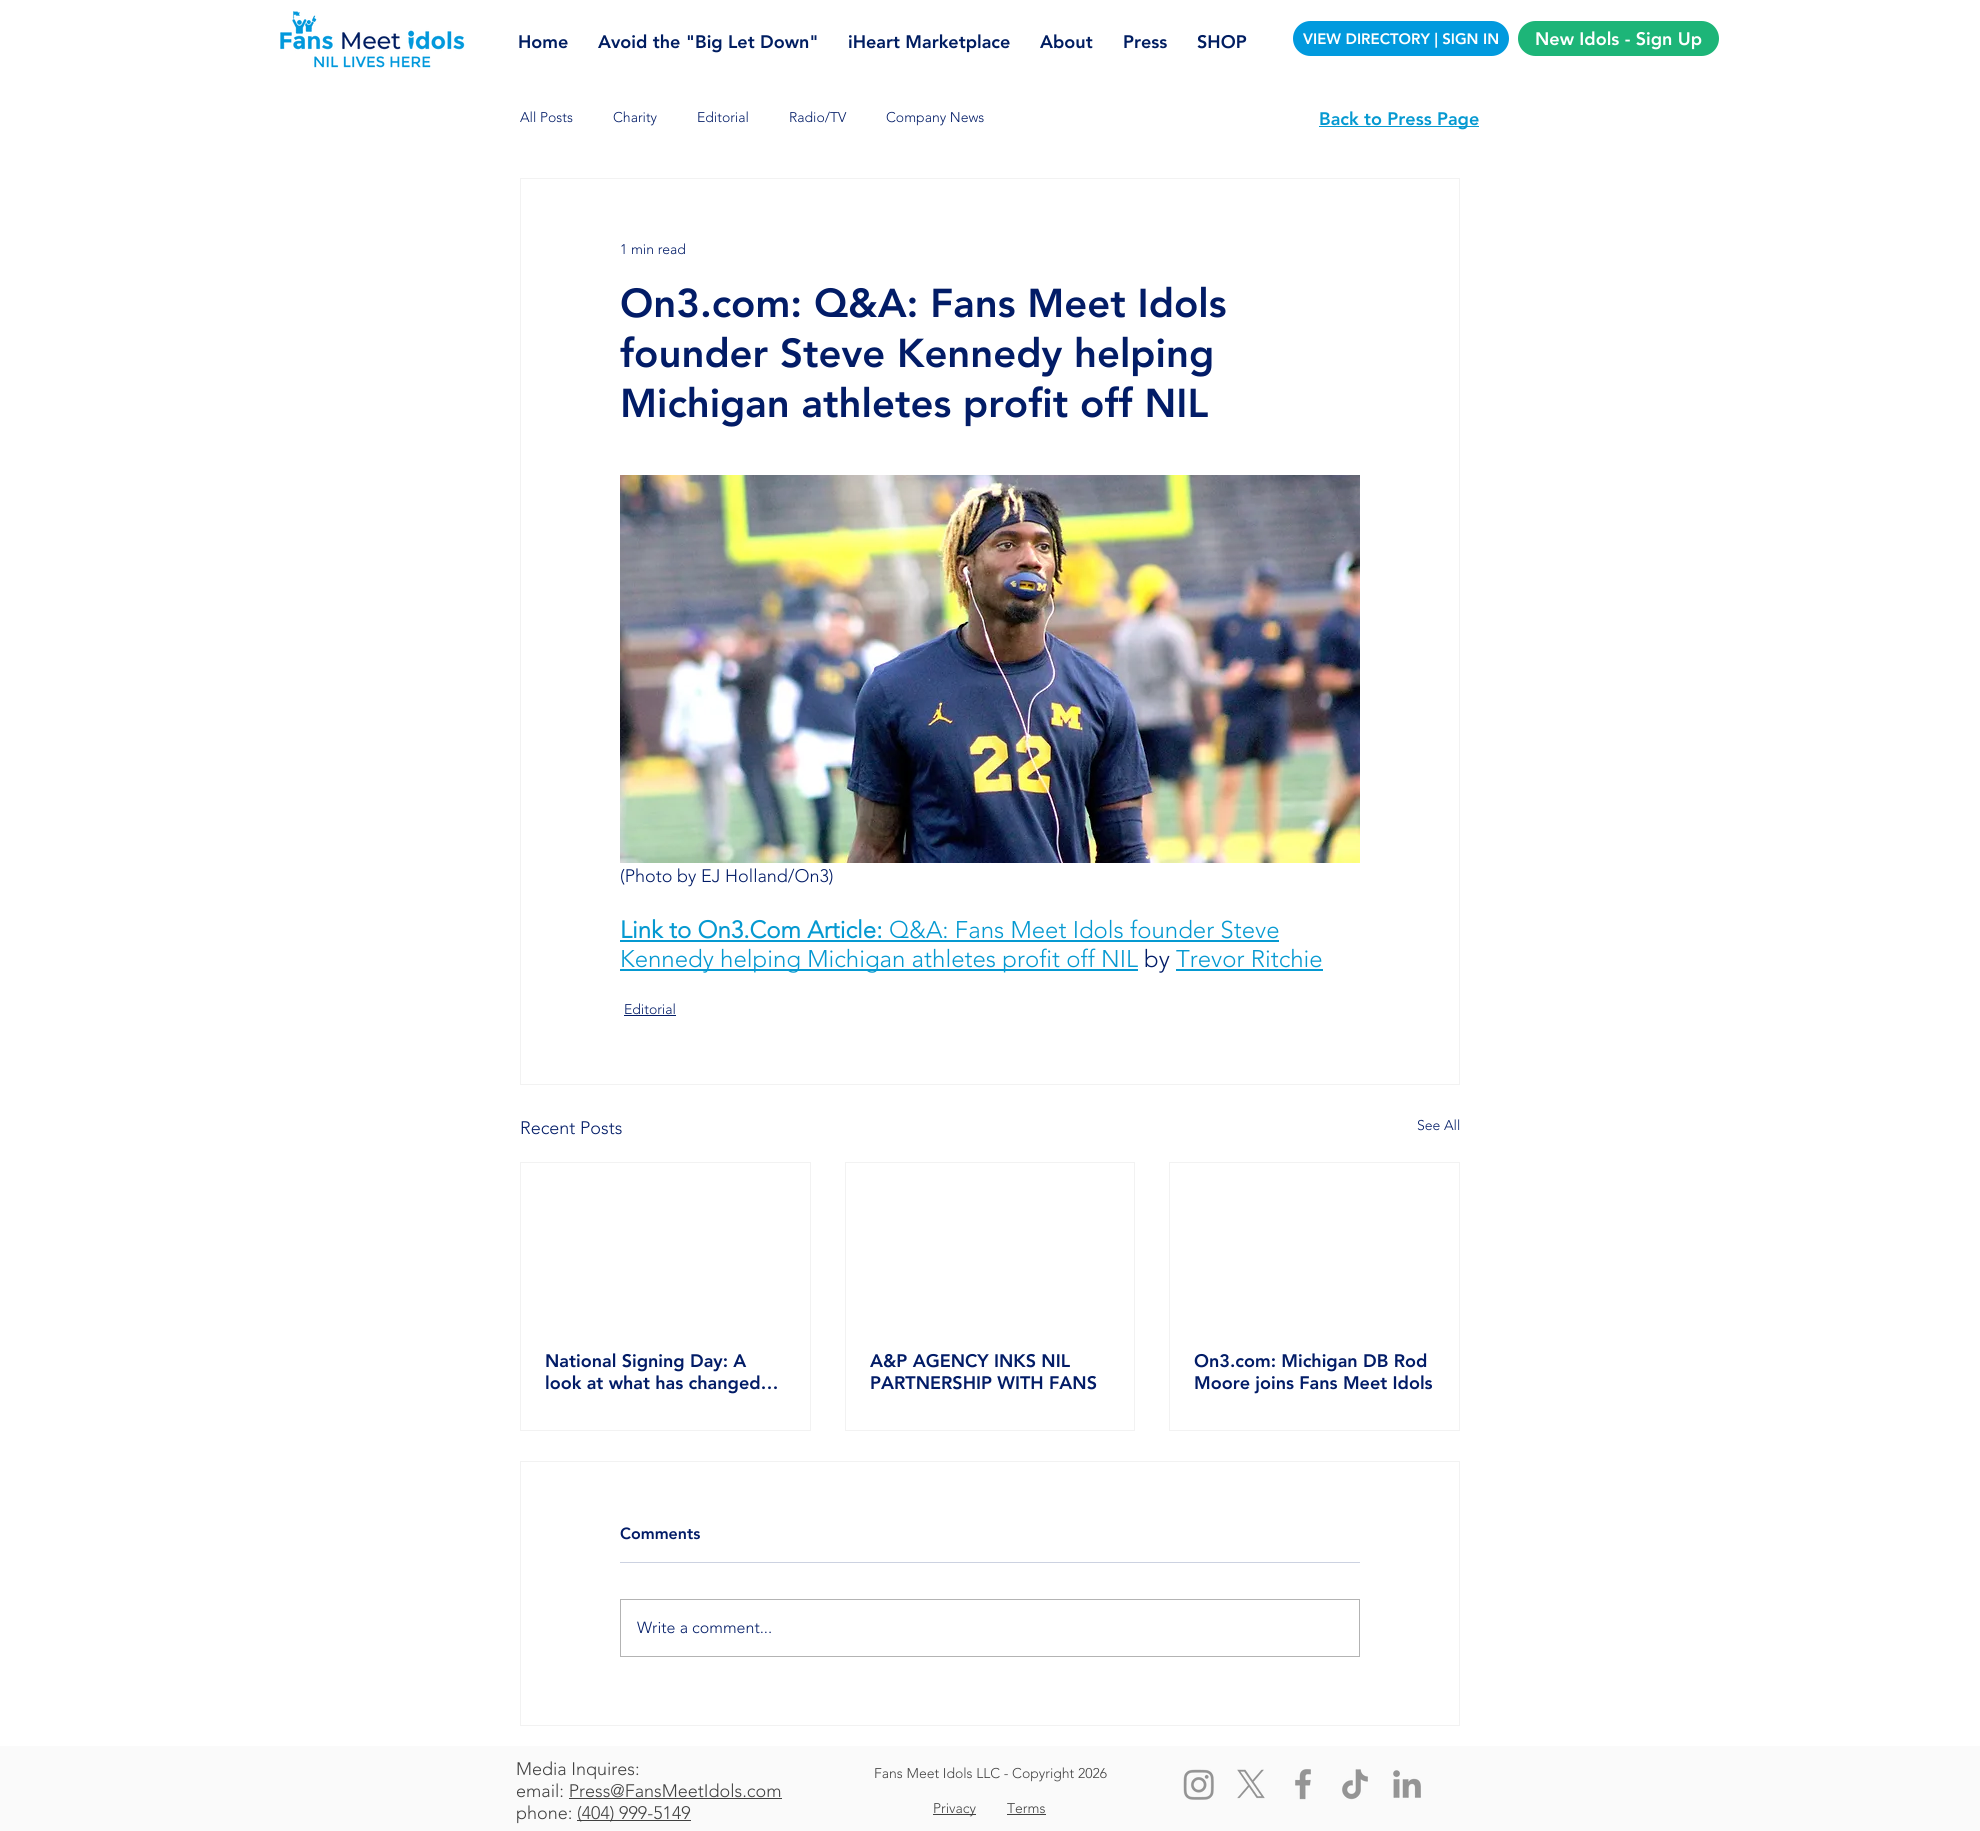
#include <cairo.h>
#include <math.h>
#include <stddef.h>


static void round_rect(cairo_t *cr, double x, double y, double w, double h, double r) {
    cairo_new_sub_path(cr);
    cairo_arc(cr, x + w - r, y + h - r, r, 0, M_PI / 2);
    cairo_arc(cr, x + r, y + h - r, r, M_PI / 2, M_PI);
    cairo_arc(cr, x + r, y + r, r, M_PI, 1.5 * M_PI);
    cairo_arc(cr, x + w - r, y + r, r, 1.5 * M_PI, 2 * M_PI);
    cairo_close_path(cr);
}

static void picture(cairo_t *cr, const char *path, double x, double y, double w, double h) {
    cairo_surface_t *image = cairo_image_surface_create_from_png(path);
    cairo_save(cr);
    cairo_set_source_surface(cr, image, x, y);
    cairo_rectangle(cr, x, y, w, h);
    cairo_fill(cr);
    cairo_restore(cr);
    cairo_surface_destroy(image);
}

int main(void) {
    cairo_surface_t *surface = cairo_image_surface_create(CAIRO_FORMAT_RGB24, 1980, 1831);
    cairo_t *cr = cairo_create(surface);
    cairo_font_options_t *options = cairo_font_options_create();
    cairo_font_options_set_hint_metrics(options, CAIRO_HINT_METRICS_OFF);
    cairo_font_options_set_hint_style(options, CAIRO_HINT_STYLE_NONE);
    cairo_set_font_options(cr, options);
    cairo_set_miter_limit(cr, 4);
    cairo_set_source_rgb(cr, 1, 1, 1);
    cairo_paint(cr);
    picture(cr, "img1.png", 280, 11, 185, 57);
    cairo_select_font_face(cr, "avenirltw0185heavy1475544 Black", CAIRO_FONT_SLANT_NORMAL, CAIRO_FONT_WEIGHT_NORMAL);
    cairo_set_font_size(cr, 18);
    cairo_set_source_rgb(cr, 0, 0.114, 0.38);
    cairo_move_to(cr, 518, 48);
    cairo_show_text(cr, "Home");
    cairo_move_to(cr, 598, 48);
    cairo_show_text(cr, "Avoid the \"Big Let Down\"");
    cairo_move_to(cr, 848, 48);
    cairo_show_text(cr, "iHeart Marketplace");
    cairo_move_to(cr, 1040, 48);
    cairo_show_text(cr, "About");
    cairo_move_to(cr, 1123, 48);
    cairo_show_text(cr, "Press");
    cairo_move_to(cr, 1197, 48);
    cairo_show_text(cr, "SHOP");
    cairo_set_source_rgb(cr, 0.004, 0.604, 0.871);
    round_rect(cr, 1293, 21, 216, 35, 17.5);
    cairo_fill(cr);
    cairo_set_font_size(cr, 15);
    cairo_set_source_rgb(cr, 1, 1, 1);
    cairo_move_to(cr, 1303, 44);
    cairo_show_text(cr, "VIEW DIRECTORY | SIGN IN");
    cairo_set_source_rgb(cr, 0.114, 0.71, 0.471);
    round_rect(cr, 1518, 21, 201, 35, 17.5);
    cairo_fill(cr);
    cairo_set_font_size(cr, 18);
    cairo_set_source_rgb(cr, 1, 1, 1);
    cairo_move_to(cr, 1535, 45);
    cairo_show_text(cr, "New Idols - Sign Up");
    cairo_select_font_face(cr, "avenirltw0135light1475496 Light", CAIRO_FONT_SLANT_NORMAL, CAIRO_FONT_WEIGHT_NORMAL);
    cairo_set_font_size(cr, 14);
    cairo_set_source_rgb(cr, 0.008, 0.11, 0.404);
    cairo_move_to(cr, 520, 122);
    cairo_show_text(cr, "All Posts");
    cairo_move_to(cr, 613, 122);
    cairo_show_text(cr, "Charity");
    cairo_move_to(cr, 697, 122);
    cairo_show_text(cr, "Editorial");
    cairo_move_to(cr, 789, 122);
    cairo_show_text(cr, "Radio/TV");
    cairo_move_to(cr, 886, 122);
    cairo_show_text(cr, "Company News");
    cairo_rectangle(cr, 520.5, 178.5, 939, 906);
    cairo_set_source_rgb(cr, 0.949, 0.949, 0.949);
    cairo_set_line_width(cr, 1);
    cairo_stroke(cr);
    cairo_set_source_rgb(cr, 0.008, 0.11, 0.404);
    cairo_move_to(cr, 620, 254);
    cairo_show_text(cr, "1 min read");
    cairo_select_font_face(cr, "avenirltw0185heavy1475544 Black", CAIRO_FONT_SLANT_NORMAL, CAIRO_FONT_WEIGHT_NORMAL);
    cairo_set_font_size(cr, 40);
    cairo_move_to(cr, 620, 317);
    cairo_show_text(cr, "On3.com: Q&A: Fans Meet Idols");
    cairo_move_to(cr, 620, 367);
    cairo_show_text(cr, "founder Steve Kennedy helping");
    cairo_move_to(cr, 620, 417);
    cairo_show_text(cr, "Michigan athletes profit off NIL");
    picture(cr, "img2.png", 620, 475, 740, 388);
    cairo_select_font_face(cr, "avenirltw0135light1475496 Light", CAIRO_FONT_SLANT_NORMAL, CAIRO_FONT_WEIGHT_NORMAL);
    cairo_set_font_size(cr, 18);
    cairo_move_to(cr, 620, 882);
    cairo_show_text(cr, "(Photo by EJ Holland/On3)");
    cairo_select_font_face(cr, "avenirltw0135light1475496", CAIRO_FONT_SLANT_NORMAL, CAIRO_FONT_WEIGHT_BOLD);
    cairo_set_font_size(cr, 24);
    cairo_set_source_rgb(cr, 0.02, 0.6, 0.82);
    cairo_move_to(cr, 620, 938);
    cairo_show_text(cr, "Link to On3.Com Article:");
    cairo_rectangle(cr, 620, 940, 659, 2);
    cairo_fill(cr);
    cairo_select_font_face(cr, "avenirltw0135light1475496 Light", CAIRO_FONT_SLANT_NORMAL, CAIRO_FONT_WEIGHT_NORMAL);
    cairo_move_to(cr, 889, 938);
    cairo_show_text(cr, "Q&A: Fans Meet Idols founder Steve");
    cairo_rectangle(cr, 620, 969, 518, 2);
    cairo_fill(cr);
    cairo_move_to(cr, 620, 967);
    cairo_show_text(cr, "Kennedy helping Michigan athletes profit off NIL");
    cairo_set_source_rgb(cr, 0.008, 0.11, 0.404);
    cairo_move_to(cr, 1144, 967);
    cairo_show_text(cr, "by");
    cairo_set_source_rgb(cr, 0.02, 0.6, 0.82);
    cairo_move_to(cr, 1176, 967);
    cairo_show_text(cr, "Trevor Ritchie");
    cairo_rectangle(cr, 1176, 969, 147, 2);
    cairo_fill(cr);
    cairo_set_font_size(cr, 14);
    cairo_set_source_rgb(cr, 0.008, 0.11, 0.404);
    cairo_move_to(cr, 624, 1014);
    cairo_show_text(cr, "Editorial");
    cairo_rectangle(cr, 624, 1015, 52, 1);
    cairo_fill(cr);
    cairo_set_font_size(cr, 18);
    cairo_move_to(cr, 520, 1134);
    cairo_show_text(cr, "Recent Posts");
    cairo_set_font_size(cr, 14);
    cairo_move_to(cr, 1417, 1130);
    cairo_show_text(cr, "See All");
    cairo_rectangle(cr, 520.5, 1162.5, 290, 268);
    cairo_set_source_rgb(cr, 0.949, 0.949, 0.949);
    cairo_stroke(cr);
    cairo_select_font_face(cr, "avenirltw0185heavy1475544 Black", CAIRO_FONT_SLANT_NORMAL, CAIRO_FONT_WEIGHT_NORMAL);
    cairo_set_font_size(cr, 18);
    cairo_set_source_rgb(cr, 0.008, 0.11, 0.404);
    cairo_move_to(cr, 545, 1367);
    cairo_show_text(cr, "National Signing Day: A");
    cairo_move_to(cr, 545, 1389);
    cairo_show_text(cr, "look at what has changed…");
    cairo_rectangle(cr, 845.5, 1162.5, 289, 268);
    cairo_set_source_rgb(cr, 0.949, 0.949, 0.949);
    cairo_stroke(cr);
    cairo_set_source_rgb(cr, 0.008, 0.11, 0.404);
    cairo_move_to(cr, 870, 1367);
    cairo_show_text(cr, "A&P AGENCY INKS NIL");
    cairo_move_to(cr, 870, 1389);
    cairo_show_text(cr, "PARTNERSHIP WITH FANS");
    cairo_rectangle(cr, 1169.5, 1162.5, 290, 268);
    cairo_set_source_rgb(cr, 0.949, 0.949, 0.949);
    cairo_stroke(cr);
    cairo_set_source_rgb(cr, 0.008, 0.11, 0.404);
    cairo_move_to(cr, 1194, 1367);
    cairo_show_text(cr, "On3.com: Michigan DB Rod");
    cairo_move_to(cr, 1194, 1389);
    cairo_show_text(cr, "Moore joins Fans Meet Idols");
    cairo_rectangle(cr, 520.5, 1461.5, 939, 264);
    cairo_set_source_rgb(cr, 0.949, 0.949, 0.949);
    cairo_stroke(cr);
    cairo_set_font_size(cr, 16);
    cairo_set_source_rgb(cr, 0.008, 0.11, 0.404);
    cairo_move_to(cr, 620, 1539);
    cairo_show_text(cr, "Comments");
    cairo_set_source_rgb(cr, 0.8, 0.824, 0.882);
    cairo_rectangle(cr, 620, 1562, 740, 1);
    cairo_fill(cr);
    cairo_rectangle(cr, 620.5, 1599.5, 739, 57);
    cairo_set_source_rgb(cr, 0.702, 0.702, 0.702);
    cairo_stroke(cr);
    cairo_select_font_face(cr, "avenirltw0135light1475496 Light", CAIRO_FONT_SLANT_NORMAL, CAIRO_FONT_WEIGHT_NORMAL);
    cairo_set_source_rgb(cr, 0.008, 0.11, 0.404);
    cairo_move_to(cr, 637, 1633);
    cairo_show_text(cr, "Write a comment...");
    cairo_set_source_rgb(cr, 0.02, 0.6, 0.82);
    cairo_rectangle(cr, 1319, 126, 160, 1);
    cairo_fill(cr);
    cairo_select_font_face(cr, "avenirltw0185heavy1475544 Black", CAIRO_FONT_SLANT_NORMAL, CAIRO_FONT_WEIGHT_NORMAL);
    cairo_set_font_size(cr, 18);
    cairo_move_to(cr, 1319, 125);
    cairo_show_text(cr, "Back to Press Page");
    cairo_set_source_rgb(cr, 0.98, 0.98, 0.98);
    cairo_rectangle(cr, 0, 1746, 1980, 85);
    cairo_fill(cr);
    cairo_select_font_face(cr, "avenirltw0135light1475496 Light", CAIRO_FONT_SLANT_NORMAL, CAIRO_FONT_WEIGHT_NORMAL);
    cairo_set_source_rgb(cr, 0.255, 0.255, 0.255);
    cairo_move_to(cr, 516, 1775);
    cairo_show_text(cr, "Media Inquires:");
    cairo_move_to(cr, 516, 1797);
    cairo_show_text(cr, "email: Press@FansMeetIdols.com");
    cairo_rectangle(cr, 569, 1798, 213, 1);
    cairo_fill(cr);
    cairo_move_to(cr, 516, 1819);
    cairo_show_text(cr, "phone:");
    cairo_rectangle(cr, 577, 1820, 114, 1);
    cairo_fill(cr);
    cairo_move_to(cr, 577, 1819);
    cairo_show_text(cr, "(404) 999-5149");
    cairo_set_font_size(cr, 14);
    cairo_move_to(cr, 874, 1778);
    cairo_show_text(cr, "Fans Meet Idols LLC - Copyright 2026");
    picture(cr, "img3.png", 1183, 1769, 31, 31);
    picture(cr, "img4.png", 1237, 1769, 28, 30);
    picture(cr, "img5.png", 1295, 1769, 16, 31);
    picture(cr, "img6.png", 1342, 1769, 26, 31);
    picture(cr, "img7.png", 1393, 1770, 28, 28);
    cairo_rectangle(cr, 933, 1814, 43, 1);
    cairo_fill(cr);
    cairo_move_to(cr, 933, 1813);
    cairo_show_text(cr, "Privacy");
    cairo_move_to(cr, 1007, 1813);
    cairo_show_text(cr, "Terms");
    cairo_rectangle(cr, 1007, 1814, 39, 1);
    cairo_fill(cr);
    cairo_surface_write_to_png(surface, "page.png");
    cairo_font_options_destroy(options);
    cairo_destroy(cr);
    cairo_surface_destroy(surface);
    return 0;
}
